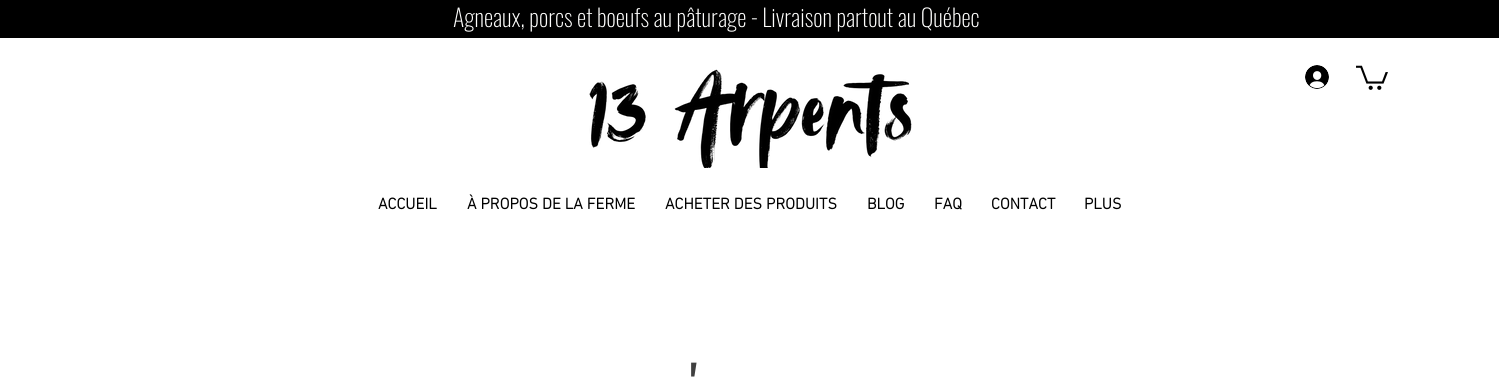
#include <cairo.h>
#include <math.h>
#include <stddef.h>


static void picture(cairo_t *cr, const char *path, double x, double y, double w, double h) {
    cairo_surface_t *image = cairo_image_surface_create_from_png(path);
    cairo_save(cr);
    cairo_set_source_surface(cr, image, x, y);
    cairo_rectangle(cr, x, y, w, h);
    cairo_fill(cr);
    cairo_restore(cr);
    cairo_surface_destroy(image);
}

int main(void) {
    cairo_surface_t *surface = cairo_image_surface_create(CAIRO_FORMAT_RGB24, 1499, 379);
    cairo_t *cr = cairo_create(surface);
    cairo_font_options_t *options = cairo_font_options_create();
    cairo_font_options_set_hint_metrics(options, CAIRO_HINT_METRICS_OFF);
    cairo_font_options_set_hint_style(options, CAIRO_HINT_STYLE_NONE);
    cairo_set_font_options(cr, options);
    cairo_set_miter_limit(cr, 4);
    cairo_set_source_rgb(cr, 1, 1, 1);
    cairo_paint(cr);
    cairo_set_source_rgb(cr, 0, 0, 0);
    cairo_rectangle(cr, 0, 0, 1499, 38);
    cairo_fill(cr);
    cairo_select_font_face(cr, "Oswald ExtraLight", CAIRO_FONT_SLANT_NORMAL, CAIRO_FONT_WEIGHT_NORMAL);
    cairo_set_font_size(cr, 24);
    cairo_set_source_rgb(cr, 1, 1, 0.996);
    cairo_move_to(cr, 453, 27);
    cairo_show_text(cr, "Agneaux, porcs et boeufs au pâturage - Livraison partout au Québec");
    picture(cr, "img1.png", 589, 69, 323, 99);
    picture(cr, "img2.png", 1305, 65, 24, 24);
    picture(cr, "img3.png", 1356, 65, 32, 25);
    cairo_select_font_face(cr, "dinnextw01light", CAIRO_FONT_SLANT_NORMAL, CAIRO_FONT_WEIGHT_BOLD);
    cairo_set_font_size(cr, 16);
    cairo_set_source_rgb(cr, 0, 0, 0);
    cairo_move_to(cr, 378, 209);
    cairo_show_text(cr, "ACCUEIL");
    cairo_move_to(cr, 467, 209);
    cairo_show_text(cr, "À PROPOS DE LA FERME");
    cairo_move_to(cr, 665, 209);
    cairo_show_text(cr, "ACHETER DES PRODUITS");
    cairo_move_to(cr, 867, 209);
    cairo_show_text(cr, "BLOG");
    cairo_move_to(cr, 934, 209);
    cairo_show_text(cr, "FAQ");
    cairo_move_to(cr, 991, 209);
    cairo_show_text(cr, "CONTACT");
    cairo_move_to(cr, 1084, 209);
    cairo_show_text(cr, "PLUS");
    cairo_select_font_face(cr, "Oswald", CAIRO_FONT_SLANT_NORMAL, CAIRO_FONT_WEIGHT_NORMAL);
    cairo_set_font_size(cr, 56);
    cairo_set_source_rgb(cr, 0.251, 0.251, 0.251);
    cairo_move_to(cr, 690, 408);
    cairo_show_text(cr, "'");
    cairo_surface_write_to_png(surface, "page.png");
    cairo_font_options_destroy(options);
    cairo_destroy(cr);
    cairo_surface_destroy(surface);
    return 0;
}
